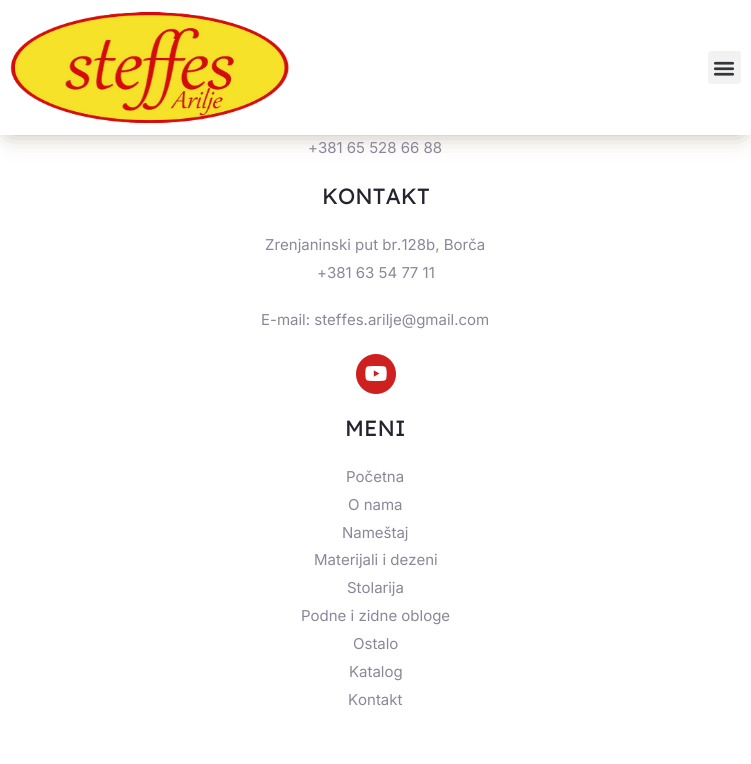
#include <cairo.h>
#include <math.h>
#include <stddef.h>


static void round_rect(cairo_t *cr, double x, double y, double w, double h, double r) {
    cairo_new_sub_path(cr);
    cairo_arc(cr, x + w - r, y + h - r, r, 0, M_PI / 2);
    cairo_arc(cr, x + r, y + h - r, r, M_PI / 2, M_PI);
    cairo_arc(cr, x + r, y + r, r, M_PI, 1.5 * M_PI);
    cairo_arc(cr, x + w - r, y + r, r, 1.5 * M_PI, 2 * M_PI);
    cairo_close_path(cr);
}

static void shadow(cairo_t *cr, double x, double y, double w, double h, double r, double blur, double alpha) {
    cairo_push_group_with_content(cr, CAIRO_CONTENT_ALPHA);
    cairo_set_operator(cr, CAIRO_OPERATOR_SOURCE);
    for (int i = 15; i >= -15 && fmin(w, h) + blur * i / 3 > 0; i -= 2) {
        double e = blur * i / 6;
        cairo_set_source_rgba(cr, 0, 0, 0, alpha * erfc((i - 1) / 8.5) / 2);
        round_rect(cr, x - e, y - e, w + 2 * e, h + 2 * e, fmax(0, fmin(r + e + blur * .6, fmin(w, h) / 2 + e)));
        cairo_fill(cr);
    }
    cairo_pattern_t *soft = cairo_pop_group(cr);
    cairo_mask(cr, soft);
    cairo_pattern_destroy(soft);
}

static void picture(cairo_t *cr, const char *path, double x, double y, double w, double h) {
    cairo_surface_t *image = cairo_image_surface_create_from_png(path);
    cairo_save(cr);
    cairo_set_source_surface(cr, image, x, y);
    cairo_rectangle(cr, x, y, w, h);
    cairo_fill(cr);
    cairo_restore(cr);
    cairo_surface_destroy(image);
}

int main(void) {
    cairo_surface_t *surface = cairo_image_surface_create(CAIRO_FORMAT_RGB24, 751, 764);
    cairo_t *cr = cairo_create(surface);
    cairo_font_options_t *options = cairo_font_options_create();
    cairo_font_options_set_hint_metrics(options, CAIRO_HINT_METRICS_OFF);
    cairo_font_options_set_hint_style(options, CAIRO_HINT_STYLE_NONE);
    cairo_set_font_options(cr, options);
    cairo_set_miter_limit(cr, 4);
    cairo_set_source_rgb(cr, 1, 1, 1);
    cairo_paint(cr);
    cairo_set_source_rgb(cr, 0.267, 0.169, 0);
    shadow(cr, 10, 15, 731, 115, 0, 12.5, 0.5);
    cairo_set_source_rgb(cr, 1, 1, 1);
    cairo_rectangle(cr, 0, 0, 751, 135);
    cairo_fill(cr);
    picture(cr, "img1.png", 10, 11, 279, 113);
    cairo_set_source_rgb(cr, 0.949, 0.949, 0.949);
    round_rect(cr, 708, 51, 33, 33, 3);
    cairo_fill(cr);
    picture(cr, "img2.png", 713, 61, 22, 15);
    cairo_select_font_face(cr, "Inter", CAIRO_FONT_SLANT_NORMAL, CAIRO_FONT_WEIGHT_NORMAL);
    cairo_set_font_size(cr, 15);
    cairo_set_source_rgb(cr, 0.545, 0.525, 0.596);
    cairo_move_to(cr, 308, 153);
    cairo_show_text(cr, "+381 65 528 66 88");
    cairo_select_font_face(cr, "Lexend", CAIRO_FONT_SLANT_NORMAL, CAIRO_FONT_WEIGHT_NORMAL);
    cairo_set_font_size(cr, 22);
    cairo_set_source_rgb(cr, 0.149, 0.133, 0.184);
    cairo_move_to(cr, 322, 204);
    cairo_show_text(cr, "KONTAKT");
    cairo_select_font_face(cr, "Inter", CAIRO_FONT_SLANT_NORMAL, CAIRO_FONT_WEIGHT_NORMAL);
    cairo_set_font_size(cr, 15);
    cairo_set_source_rgb(cr, 0.545, 0.525, 0.596);
    cairo_move_to(cr, 265, 250);
    cairo_show_text(cr, "Zrenjaninski put br.128b, Borča");
    cairo_move_to(cr, 317, 278);
    cairo_show_text(cr, "+381 63 54 77 11");
    cairo_move_to(cr, 261, 325);
    cairo_show_text(cr, "E-mail: steffes.arilje@gmail.com");
    cairo_set_source_rgb(cr, 0.804, 0.125, 0.122);
    cairo_new_path(cr);
    cairo_arc(cr, 376, 374, 20, 0, 2 * M_PI);
    cairo_fill(cr);
    picture(cr, "img3.png", 365, 366, 22, 15);
    cairo_select_font_face(cr, "Lexend", CAIRO_FONT_SLANT_NORMAL, CAIRO_FONT_WEIGHT_NORMAL);
    cairo_set_font_size(cr, 22);
    cairo_set_source_rgb(cr, 0.149, 0.133, 0.184);
    cairo_move_to(cr, 345, 436);
    cairo_show_text(cr, "MENI");
    cairo_select_font_face(cr, "Inter", CAIRO_FONT_SLANT_NORMAL, CAIRO_FONT_WEIGHT_NORMAL);
    cairo_set_font_size(cr, 15);
    cairo_set_source_rgb(cr, 0.545, 0.525, 0.596);
    cairo_move_to(cr, 346, 482);
    cairo_show_text(cr, "Početna");
    cairo_move_to(cr, 348, 510);
    cairo_show_text(cr, "O nama");
    cairo_move_to(cr, 342, 538);
    cairo_show_text(cr, "Nameštaj");
    cairo_move_to(cr, 314, 565);
    cairo_show_text(cr, "Materijali i dezeni");
    cairo_move_to(cr, 347, 593);
    cairo_show_text(cr, "Stolarija");
    cairo_move_to(cr, 301, 621);
    cairo_show_text(cr, "Podne i zidne obloge");
    cairo_move_to(cr, 353, 649);
    cairo_show_text(cr, "Ostalo");
    cairo_move_to(cr, 349, 677);
    cairo_show_text(cr, "Katalog");
    cairo_move_to(cr, 348, 705);
    cairo_show_text(cr, "Kontakt");
    cairo_surface_write_to_png(surface, "page.png");
    cairo_font_options_destroy(options);
    cairo_destroy(cr);
    cairo_surface_destroy(surface);
    return 0;
}
